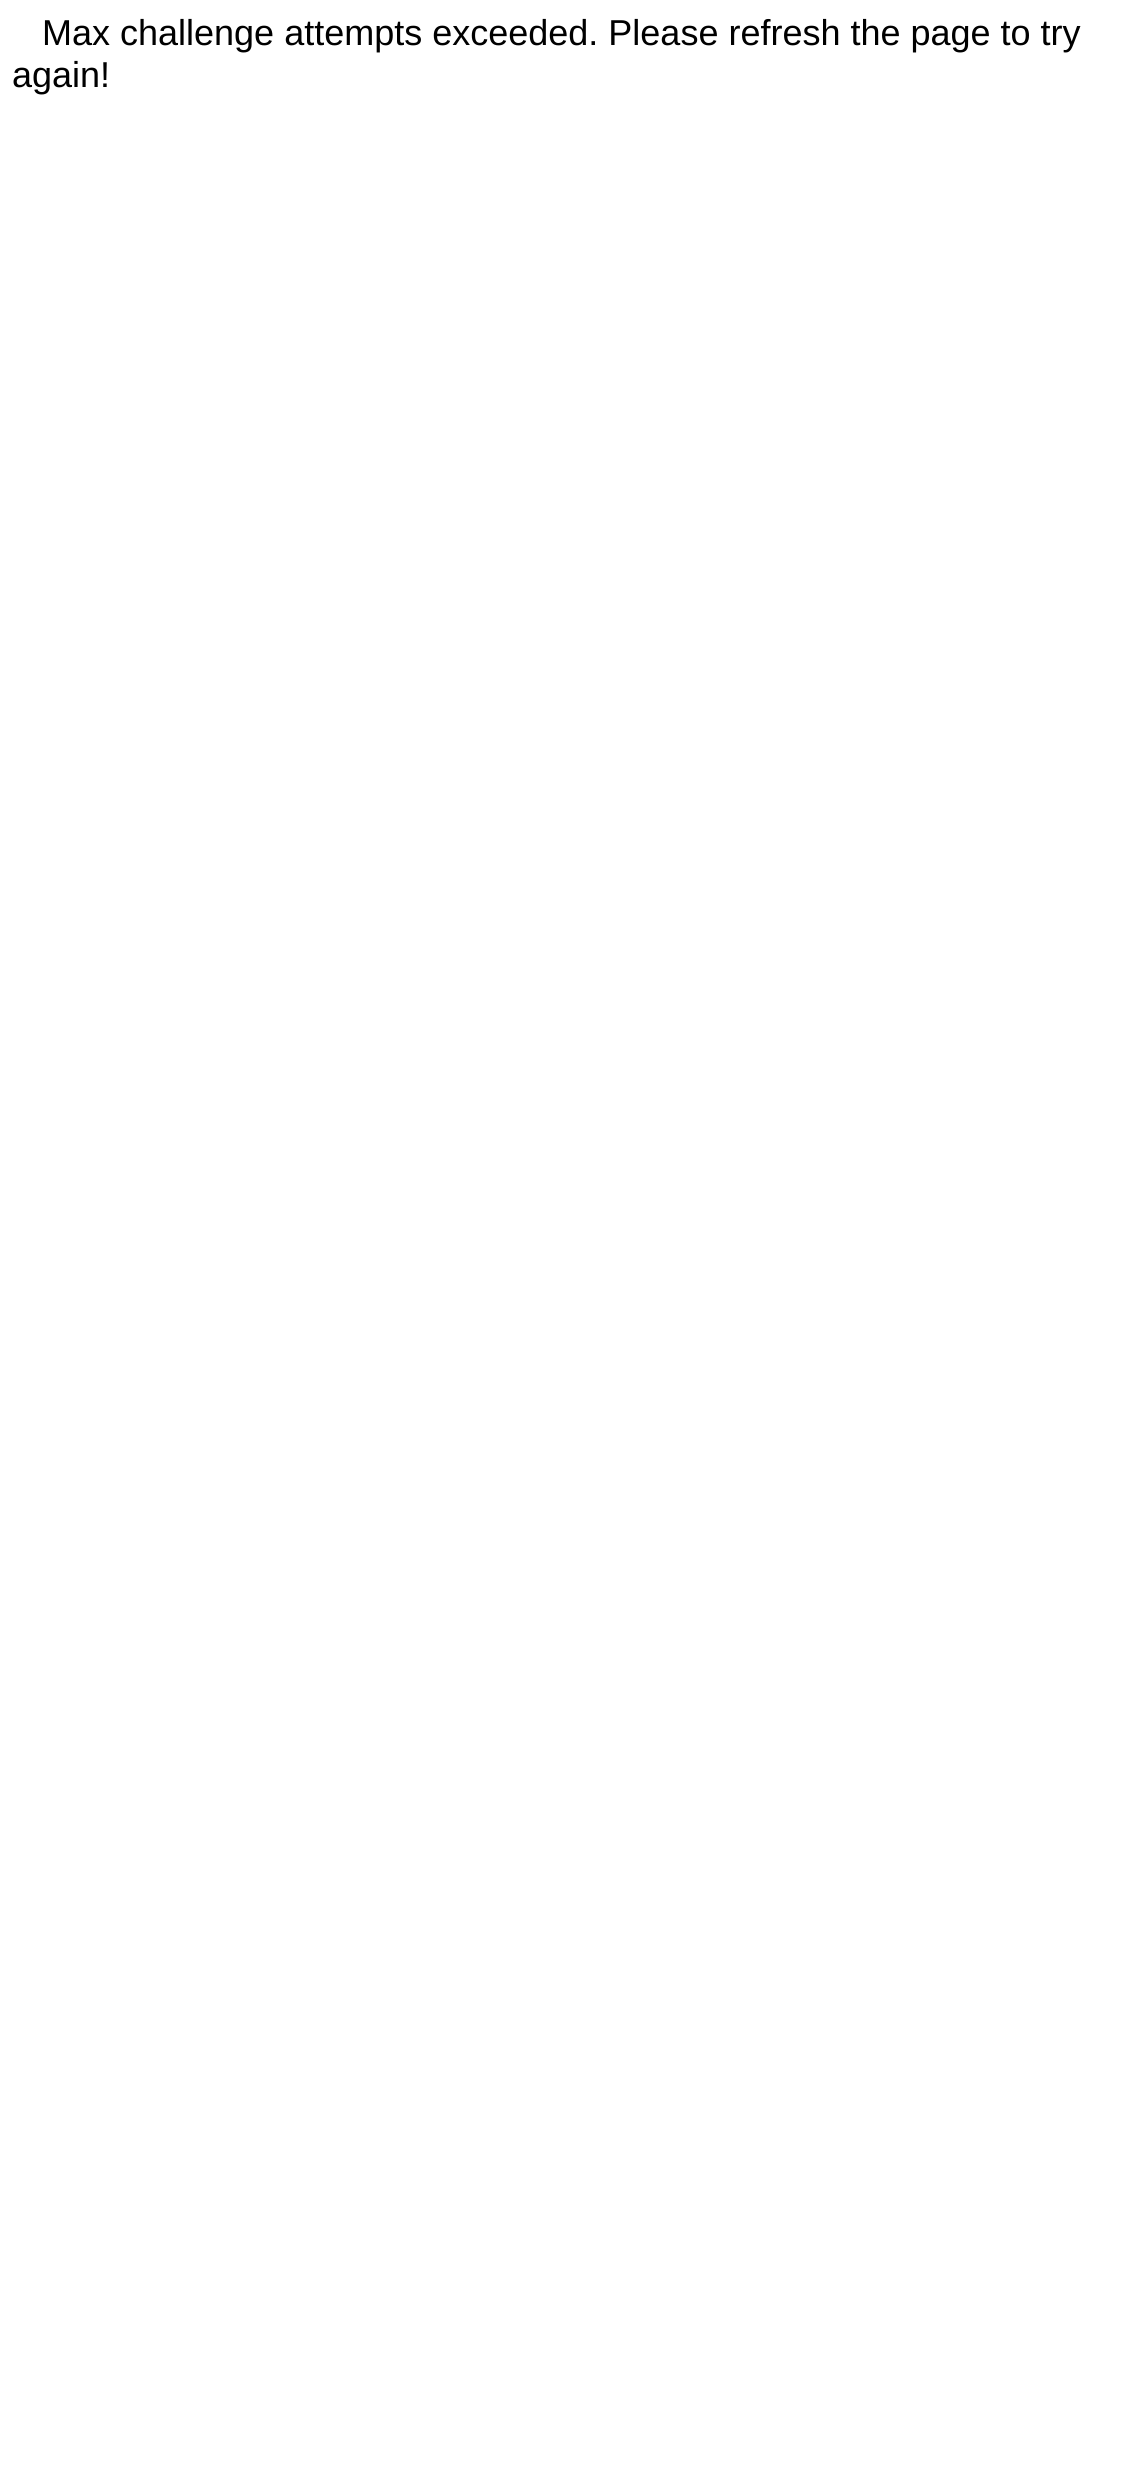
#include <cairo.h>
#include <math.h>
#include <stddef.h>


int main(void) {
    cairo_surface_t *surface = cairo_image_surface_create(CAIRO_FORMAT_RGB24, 1147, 2478);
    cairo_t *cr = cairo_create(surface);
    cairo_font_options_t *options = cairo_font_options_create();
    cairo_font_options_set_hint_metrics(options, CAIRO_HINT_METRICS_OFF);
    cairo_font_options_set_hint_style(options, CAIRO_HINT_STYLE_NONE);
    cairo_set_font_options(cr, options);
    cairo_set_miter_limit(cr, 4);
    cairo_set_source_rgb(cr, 1, 1, 1);
    cairo_paint(cr);
    cairo_select_font_face(cr, "Liberation Sans", CAIRO_FONT_SLANT_NORMAL, CAIRO_FONT_WEIGHT_NORMAL);
    cairo_set_font_size(cr, 36);
    cairo_set_source_rgb(cr, 0, 0, 0);
    cairo_move_to(cr, 42, 45);
    cairo_show_text(cr, "Max challenge attempts exceeded. Please refresh the page to try");
    cairo_move_to(cr, 12, 87);
    cairo_show_text(cr, "again!");
    cairo_surface_write_to_png(surface, "page.png");
    cairo_font_options_destroy(options);
    cairo_destroy(cr);
    cairo_surface_destroy(surface);
    return 0;
}
